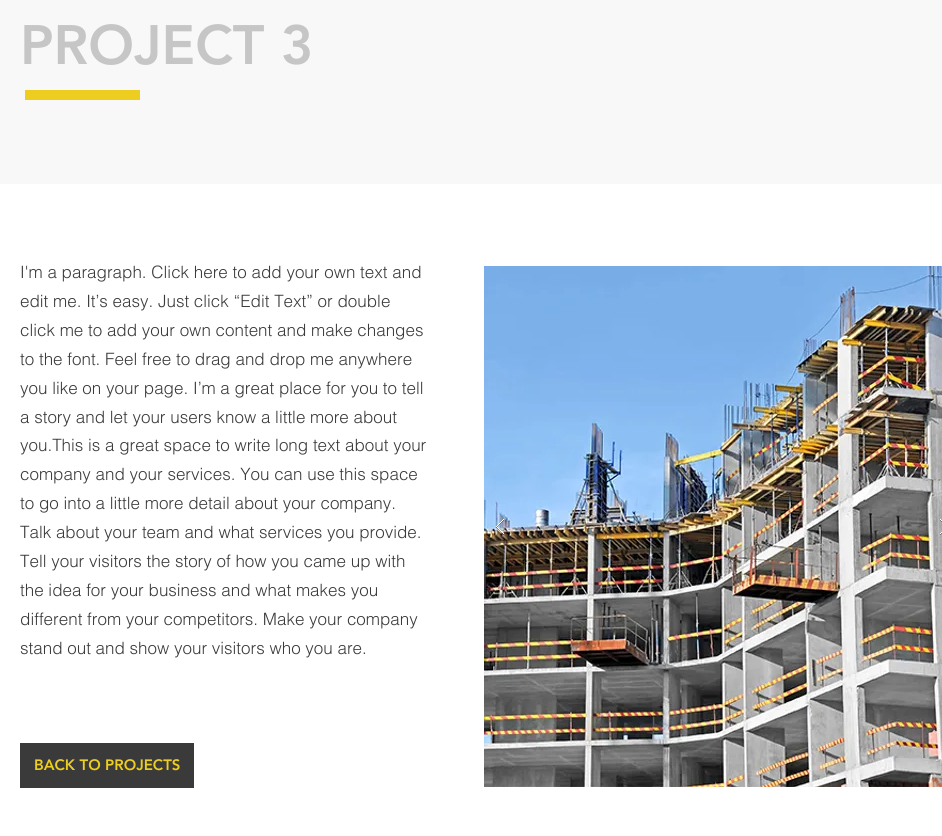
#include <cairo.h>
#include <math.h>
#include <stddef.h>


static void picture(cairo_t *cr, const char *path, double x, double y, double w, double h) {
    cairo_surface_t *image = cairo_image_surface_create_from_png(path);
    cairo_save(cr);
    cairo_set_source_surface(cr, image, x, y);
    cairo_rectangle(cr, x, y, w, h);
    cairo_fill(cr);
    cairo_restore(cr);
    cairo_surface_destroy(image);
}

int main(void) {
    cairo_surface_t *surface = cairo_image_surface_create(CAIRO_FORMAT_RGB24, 942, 836);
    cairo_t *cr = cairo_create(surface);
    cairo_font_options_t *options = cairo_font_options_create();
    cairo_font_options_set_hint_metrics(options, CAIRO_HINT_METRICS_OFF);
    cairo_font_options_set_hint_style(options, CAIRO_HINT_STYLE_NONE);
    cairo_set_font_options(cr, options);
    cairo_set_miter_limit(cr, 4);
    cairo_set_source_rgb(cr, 0.969, 0.969, 0.969);
    cairo_paint(cr);
    cairo_select_font_face(cr, "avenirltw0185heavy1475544 Black", CAIRO_FONT_SLANT_NORMAL, CAIRO_FONT_WEIGHT_NORMAL);
    cairo_set_font_size(cr, 55);
    cairo_set_source_rgb(cr, 0.776, 0.776, 0.776);
    cairo_move_to(cr, 20, 64);
    cairo_show_text(cr, "PROJECT 3");
    cairo_set_source_rgb(cr, 0.929, 0.804, 0.122);
    cairo_rectangle(cr, 25, 90, 115, 10);
    cairo_fill(cr);
    cairo_set_source_rgb(cr, 1, 1, 1);
    cairo_rectangle(cr, 0, 184, 942, 652);
    cairo_fill(cr);
    cairo_select_font_face(cr, "helvetica Light", CAIRO_FONT_SLANT_NORMAL, CAIRO_FONT_WEIGHT_NORMAL);
    cairo_set_font_size(cr, 17);
    cairo_set_source_rgb(cr, 0.231, 0.227, 0.227);
    cairo_move_to(cr, 20, 278);
    cairo_show_text(cr, "I'm a paragraph. Click here to add your own text and");
    cairo_move_to(cr, 20, 307);
    cairo_show_text(cr, "edit me. It’s easy. Just click “Edit Text” or double");
    cairo_move_to(cr, 20, 336);
    cairo_show_text(cr, "click me to add your own content and make changes");
    cairo_move_to(cr, 20, 365);
    cairo_show_text(cr, "to the font. Feel free to drag and drop me anywhere");
    cairo_move_to(cr, 20, 394);
    cairo_show_text(cr, "you like on your page. I’m a great place for you to tell");
    cairo_move_to(cr, 20, 423);
    cairo_show_text(cr, "a story and let your users know a little more about");
    cairo_move_to(cr, 20, 451);
    cairo_show_text(cr, "you.This is a great space to write long text about your");
    cairo_move_to(cr, 20, 480);
    cairo_show_text(cr, "company and your services. You can use this space");
    cairo_move_to(cr, 20, 509);
    cairo_show_text(cr, "to go into a little more detail about your company.");
    cairo_move_to(cr, 20, 538);
    cairo_show_text(cr, "Talk about your team and what services you provide.");
    cairo_move_to(cr, 20, 567);
    cairo_show_text(cr, "Tell your visitors the story of how you came up with");
    cairo_move_to(cr, 20, 596);
    cairo_show_text(cr, "the idea for your business and what makes you");
    cairo_move_to(cr, 20, 625);
    cairo_show_text(cr, "different from your competitors. Make your company");
    cairo_move_to(cr, 20, 654);
    cairo_show_text(cr, "stand out and show your visitors who you are.");
    cairo_rectangle(cr, 20, 743, 174, 45);
    cairo_fill(cr);
    cairo_select_font_face(cr, "avenirltw0185heavy1475544 Black", CAIRO_FONT_SLANT_NORMAL, CAIRO_FONT_WEIGHT_NORMAL);
    cairo_set_font_size(cr, 15);
    cairo_set_source_rgb(cr, 0.929, 0.804, 0.122);
    cairo_move_to(cr, 34, 770);
    cairo_show_text(cr, "BACK TO PROJECTS");
    picture(cr, "img1.png", 484, 266, 458, 521);
    cairo_select_font_face(cr, "Liberation Sans", CAIRO_FONT_SLANT_NORMAL, CAIRO_FONT_WEIGHT_NORMAL);
    cairo_set_font_size(cr, 12);
    cairo_set_source_rgb(cr, 0.494, 0.667, 0.871);
    cairo_move_to(cr, 933, 286);
    cairo_show_text(cr, "1");
    picture(cr, "img2.png", 496, 519, 8, 16);
    picture(cr, "img3.png", 940, 519, 2, 16);
    cairo_surface_write_to_png(surface, "page.png");
    cairo_font_options_destroy(options);
    cairo_destroy(cr);
    cairo_surface_destroy(surface);
    return 0;
}
